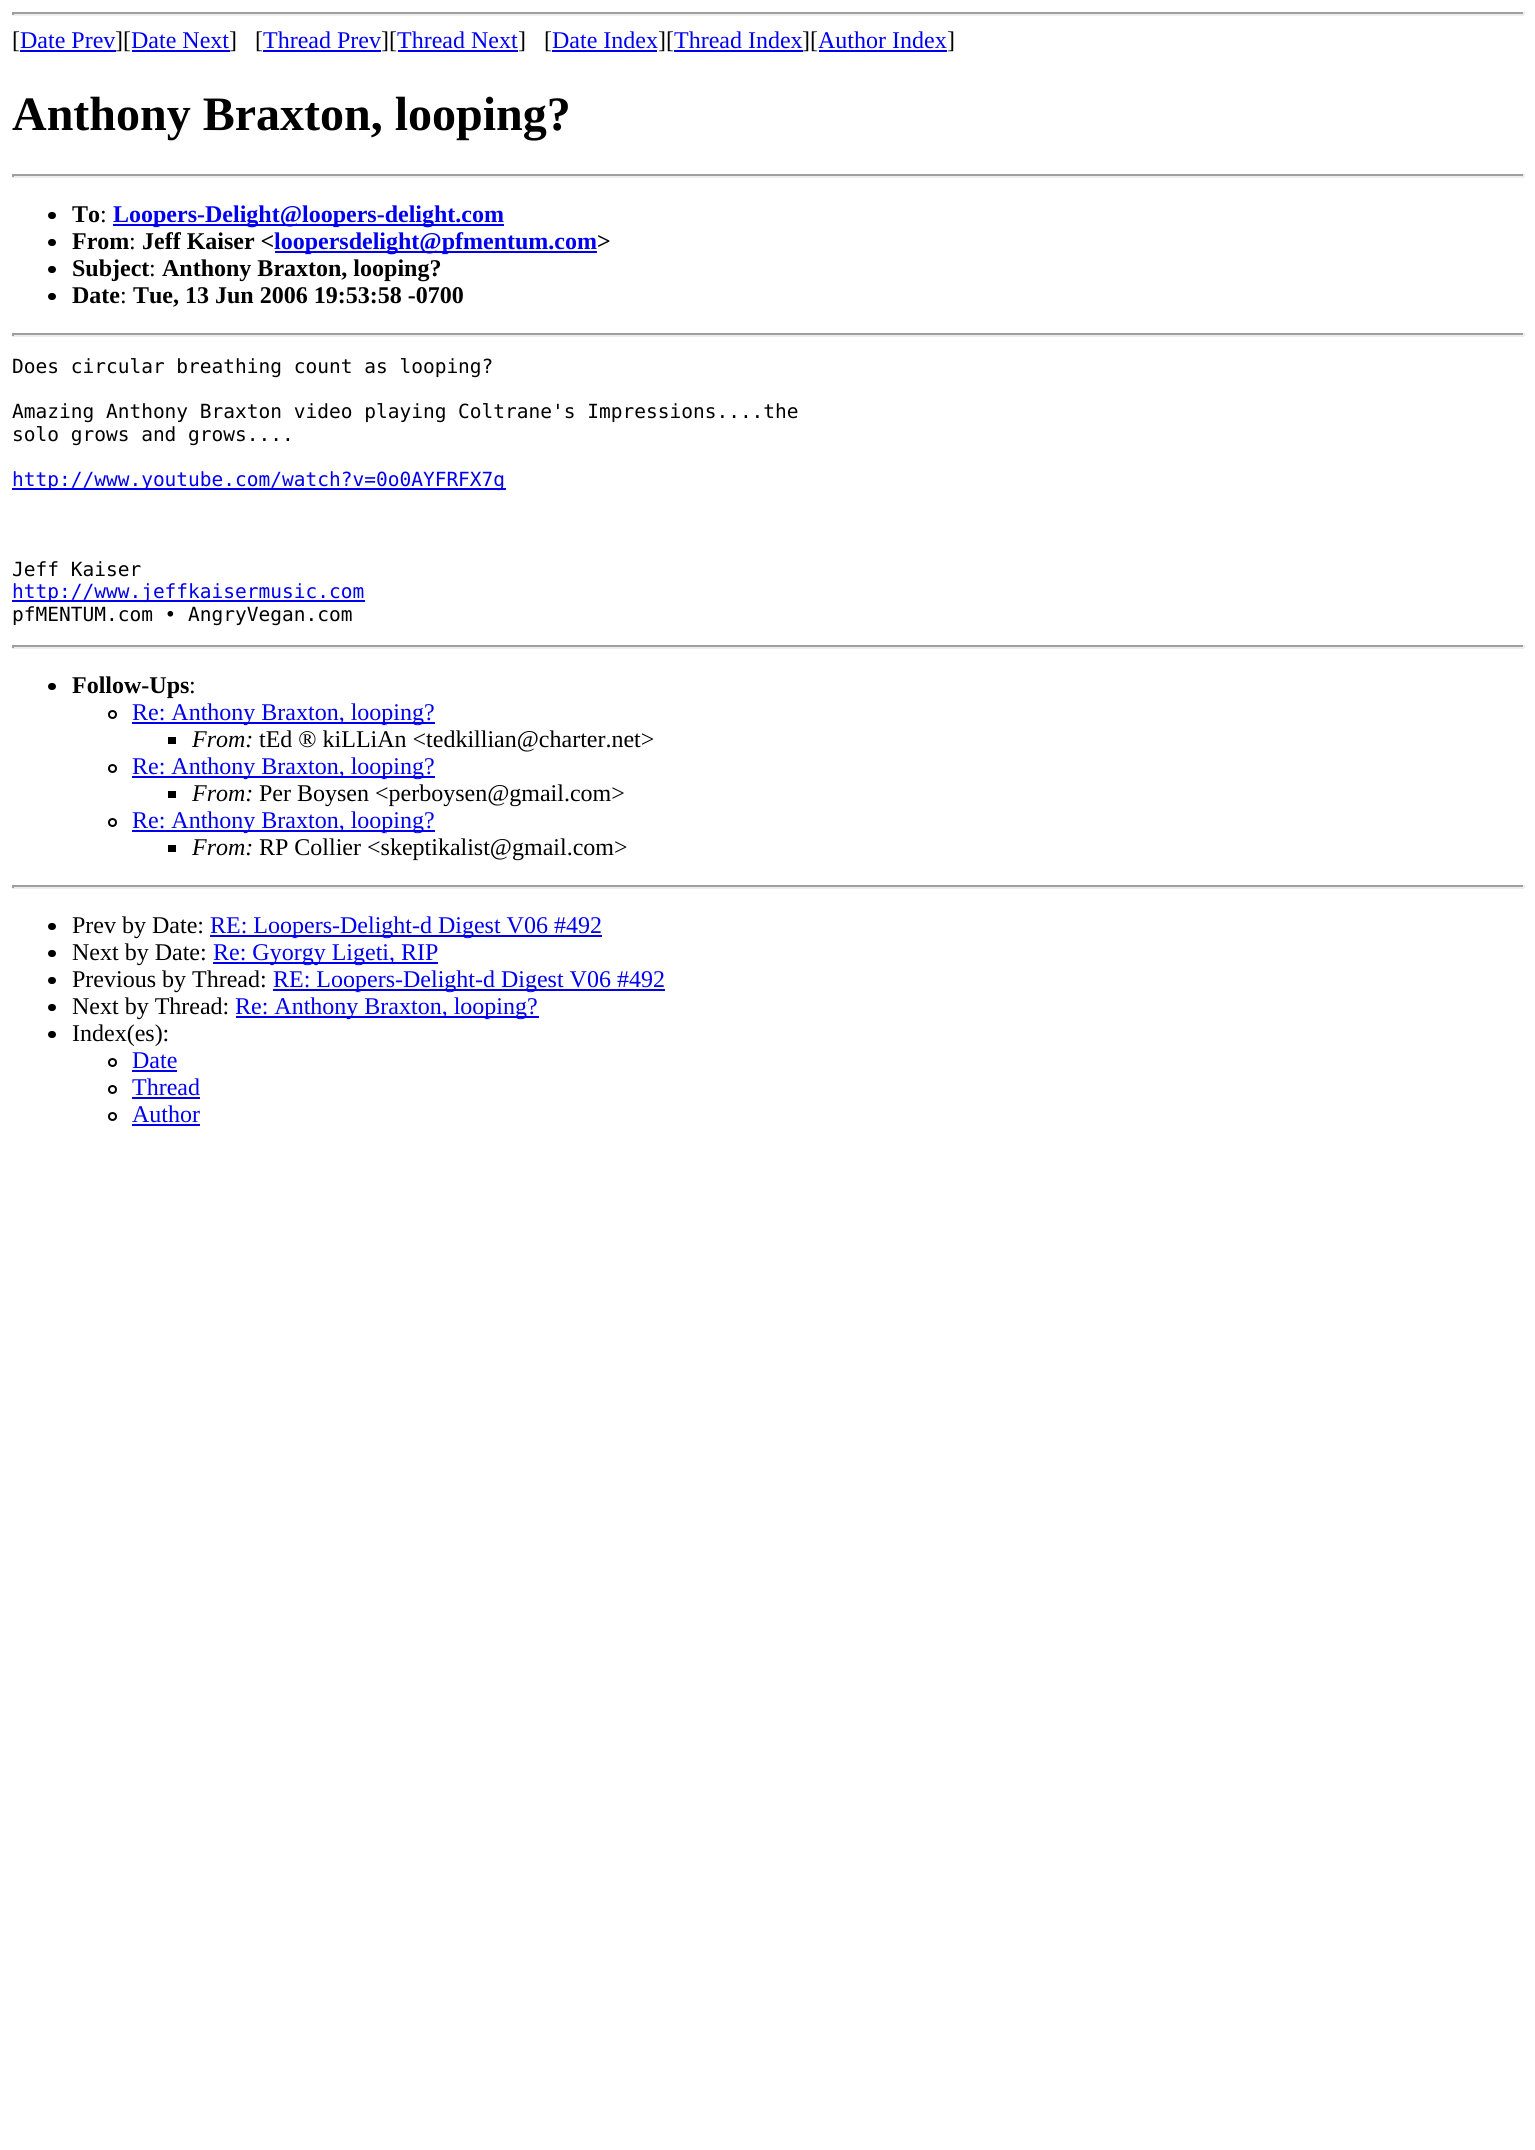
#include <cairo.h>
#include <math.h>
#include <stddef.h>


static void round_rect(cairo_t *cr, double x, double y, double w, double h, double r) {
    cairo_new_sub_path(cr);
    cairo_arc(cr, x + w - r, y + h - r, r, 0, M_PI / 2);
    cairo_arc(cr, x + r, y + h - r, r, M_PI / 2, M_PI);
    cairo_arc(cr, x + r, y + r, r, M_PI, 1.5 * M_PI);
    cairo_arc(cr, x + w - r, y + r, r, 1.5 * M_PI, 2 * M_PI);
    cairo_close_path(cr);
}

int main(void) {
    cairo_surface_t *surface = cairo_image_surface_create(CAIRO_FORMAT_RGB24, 1535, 2150);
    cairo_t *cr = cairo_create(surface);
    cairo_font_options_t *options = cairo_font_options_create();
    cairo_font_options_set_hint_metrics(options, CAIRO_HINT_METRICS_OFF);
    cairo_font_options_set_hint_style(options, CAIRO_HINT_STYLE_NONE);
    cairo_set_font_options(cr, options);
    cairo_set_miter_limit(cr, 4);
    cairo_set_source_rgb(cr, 1, 1, 1);
    cairo_paint(cr);
    cairo_set_source_rgb(cr, 0.624, 0.624, 0.624);
    cairo_rectangle(cr, 12, 12, 1512, 2);
    cairo_fill(cr);
    cairo_set_source_rgb(cr, 0.933, 0.933, 0.933);
    cairo_rectangle(cr, 1523, 12, 2, 3);
    cairo_fill(cr);
    cairo_rectangle(cr, 12, 14, 1512, 2);
    cairo_fill(cr);
    cairo_set_source_rgb(cr, 0.624, 0.624, 0.624);
    cairo_rectangle(cr, 12, 12, 2, 3);
    cairo_fill(cr);
    cairo_select_font_face(cr, "Liberation Serif", CAIRO_FONT_SLANT_NORMAL, CAIRO_FONT_WEIGHT_NORMAL);
    cairo_set_font_size(cr, 24);
    cairo_set_source_rgb(cr, 0, 0, 0);
    cairo_move_to(cr, 12, 48);
    cairo_show_text(cr, "[");
    cairo_set_source_rgb(cr, 0, 0, 0.933);
    cairo_move_to(cr, 20, 48);
    cairo_show_text(cr, "Date Prev");
    cairo_rectangle(cr, 20, 50, 96, 2);
    cairo_fill(cr);
    cairo_set_source_rgb(cr, 0, 0, 0);
    cairo_move_to(cr, 115, 48);
    cairo_show_text(cr, "][");
    cairo_set_source_rgb(cr, 0, 0, 0.933);
    cairo_move_to(cr, 131, 48);
    cairo_show_text(cr, "Date Next");
    cairo_rectangle(cr, 132, 50, 98, 2);
    cairo_fill(cr);
    cairo_set_source_rgb(cr, 0, 0, 0);
    cairo_move_to(cr, 229, 48);
    cairo_show_text(cr, "]   [");
    cairo_set_source_rgb(cr, 0, 0, 0.933);
    cairo_move_to(cr, 263, 48);
    cairo_show_text(cr, "Thread Prev");
    cairo_rectangle(cr, 263, 50, 118, 2);
    cairo_fill(cr);
    cairo_set_source_rgb(cr, 0, 0, 0);
    cairo_move_to(cr, 381, 48);
    cairo_show_text(cr, "][");
    cairo_set_source_rgb(cr, 0, 0, 0.933);
    cairo_move_to(cr, 397, 48);
    cairo_show_text(cr, "Thread Next");
    cairo_rectangle(cr, 398, 50, 120, 2);
    cairo_fill(cr);
    cairo_set_source_rgb(cr, 0, 0, 0);
    cairo_move_to(cr, 518, 48);
    cairo_show_text(cr, "]   [");
    cairo_set_source_rgb(cr, 0, 0, 0.933);
    cairo_move_to(cr, 552, 48);
    cairo_show_text(cr, "Date Index");
    cairo_rectangle(cr, 552, 50, 105, 2);
    cairo_fill(cr);
    cairo_set_source_rgb(cr, 0, 0, 0);
    cairo_move_to(cr, 658, 48);
    cairo_show_text(cr, "][");
    cairo_set_source_rgb(cr, 0, 0, 0.933);
    cairo_move_to(cr, 674, 48);
    cairo_show_text(cr, "Thread Index");
    cairo_rectangle(cr, 674, 50, 129, 2);
    cairo_fill(cr);
    cairo_set_source_rgb(cr, 0, 0, 0);
    cairo_move_to(cr, 802, 48);
    cairo_show_text(cr, "][");
    cairo_set_source_rgb(cr, 0, 0, 0.933);
    cairo_move_to(cr, 818, 48);
    cairo_show_text(cr, "Author Index");
    cairo_rectangle(cr, 819, 50, 128, 2);
    cairo_fill(cr);
    cairo_set_source_rgb(cr, 0, 0, 0);
    cairo_move_to(cr, 947, 48);
    cairo_show_text(cr, "]");
    cairo_select_font_face(cr, "Liberation Serif", CAIRO_FONT_SLANT_NORMAL, CAIRO_FONT_WEIGHT_BOLD);
    cairo_set_font_size(cr, 48);
    cairo_move_to(cr, 12, 130);
    cairo_show_text(cr, "Anthony Braxton, looping?");
    cairo_set_source_rgb(cr, 0.624, 0.624, 0.624);
    cairo_rectangle(cr, 12, 174, 1512, 2);
    cairo_fill(cr);
    cairo_set_source_rgb(cr, 0.933, 0.933, 0.933);
    cairo_rectangle(cr, 1523, 174, 2, 3);
    cairo_fill(cr);
    cairo_rectangle(cr, 12, 176, 1512, 2);
    cairo_fill(cr);
    cairo_set_source_rgb(cr, 0.624, 0.624, 0.624);
    cairo_rectangle(cr, 12, 174, 2, 3);
    cairo_fill(cr);
    cairo_set_source_rgb(cr, 0, 0, 0);
    round_rect(cr, 48, 212, 8, 7, 3.5);
    cairo_fill(cr);
    cairo_set_font_size(cr, 24);
    cairo_move_to(cr, 72, 222);
    cairo_show_text(cr, "To");
    cairo_select_font_face(cr, "Liberation Serif", CAIRO_FONT_SLANT_NORMAL, CAIRO_FONT_WEIGHT_NORMAL);
    cairo_move_to(cr, 100, 222);
    cairo_show_text(cr, ":");
    cairo_set_source_rgb(cr, 0, 0, 0.933);
    cairo_rectangle(cr, 113, 224, 391, 2);
    cairo_fill(cr);
    cairo_select_font_face(cr, "Liberation Serif", CAIRO_FONT_SLANT_NORMAL, CAIRO_FONT_WEIGHT_BOLD);
    cairo_move_to(cr, 113, 222);
    cairo_show_text(cr, "Loopers-Delight@loopers-delight.com");
    cairo_set_source_rgb(cr, 0, 0, 0);
    round_rect(cr, 48, 239, 8, 7, 3.5);
    cairo_fill(cr);
    cairo_move_to(cr, 72, 249);
    cairo_show_text(cr, "From");
    cairo_select_font_face(cr, "Liberation Serif", CAIRO_FONT_SLANT_NORMAL, CAIRO_FONT_WEIGHT_NORMAL);
    cairo_move_to(cr, 129, 249);
    cairo_show_text(cr, ":");
    cairo_select_font_face(cr, "Liberation Serif", CAIRO_FONT_SLANT_NORMAL, CAIRO_FONT_WEIGHT_BOLD);
    cairo_move_to(cr, 142, 249);
    cairo_show_text(cr, "Jeff Kaiser <");
    cairo_set_source_rgb(cr, 0, 0, 0.933);
    cairo_rectangle(cr, 275, 251, 322, 2);
    cairo_fill(cr);
    cairo_move_to(cr, 274, 249);
    cairo_show_text(cr, "loopersdelight@pfmentum.com");
    cairo_set_source_rgb(cr, 0, 0, 0);
    cairo_move_to(cr, 597, 249);
    cairo_show_text(cr, ">");
    round_rect(cr, 48, 266, 8, 7, 3.5);
    cairo_fill(cr);
    cairo_move_to(cr, 72, 276);
    cairo_show_text(cr, "Subject");
    cairo_select_font_face(cr, "Liberation Serif", CAIRO_FONT_SLANT_NORMAL, CAIRO_FONT_WEIGHT_NORMAL);
    cairo_move_to(cr, 149, 276);
    cairo_show_text(cr, ":");
    cairo_select_font_face(cr, "Liberation Serif", CAIRO_FONT_SLANT_NORMAL, CAIRO_FONT_WEIGHT_BOLD);
    cairo_move_to(cr, 162, 276);
    cairo_show_text(cr, "Anthony Braxton, looping?");
    round_rect(cr, 48, 293, 8, 7, 3.5);
    cairo_fill(cr);
    cairo_move_to(cr, 72, 303);
    cairo_show_text(cr, "Date");
    cairo_select_font_face(cr, "Liberation Serif", CAIRO_FONT_SLANT_NORMAL, CAIRO_FONT_WEIGHT_NORMAL);
    cairo_move_to(cr, 120, 303);
    cairo_show_text(cr, ":");
    cairo_select_font_face(cr, "Liberation Serif", CAIRO_FONT_SLANT_NORMAL, CAIRO_FONT_WEIGHT_BOLD);
    cairo_move_to(cr, 133, 303);
    cairo_show_text(cr, "Tue, 13 Jun 2006 19:53:58 -0700");
    cairo_set_source_rgb(cr, 0.624, 0.624, 0.624);
    cairo_rectangle(cr, 12, 333, 1512, 2);
    cairo_fill(cr);
    cairo_set_source_rgb(cr, 0.933, 0.933, 0.933);
    cairo_rectangle(cr, 1523, 333, 2, 3);
    cairo_fill(cr);
    cairo_rectangle(cr, 12, 335, 1512, 2);
    cairo_fill(cr);
    cairo_set_source_rgb(cr, 0.624, 0.624, 0.624);
    cairo_rectangle(cr, 12, 333, 2, 3);
    cairo_fill(cr);
    cairo_select_font_face(cr, "DejaVu Sans Mono", CAIRO_FONT_SLANT_NORMAL, CAIRO_FONT_WEIGHT_NORMAL);
    cairo_set_font_size(cr, 19.5);
    cairo_set_source_rgb(cr, 0, 0, 0);
    cairo_move_to(cr, 12, 373);
    cairo_show_text(cr, "Does circular breathing count as looping?");
    cairo_move_to(cr, 12, 418);
    cairo_show_text(cr, "Amazing Anthony Braxton video playing Coltrane's Impressions....the");
    cairo_move_to(cr, 12, 441);
    cairo_show_text(cr, "solo grows and grows....");
    cairo_set_source_rgb(cr, 0, 0, 0.933);
    cairo_rectangle(cr, 12, 488, 494, 2);
    cairo_fill(cr);
    cairo_move_to(cr, 12, 486);
    cairo_show_text(cr, "http://www.youtube.com/watch?v=0o0AYFRFX7g");
    cairo_set_source_rgb(cr, 0, 0, 0);
    cairo_move_to(cr, 12, 576);
    cairo_show_text(cr, "Jeff Kaiser");
    cairo_set_source_rgb(cr, 0, 0, 0.933);
    cairo_rectangle(cr, 12, 600, 353, 2);
    cairo_fill(cr);
    cairo_move_to(cr, 12, 598);
    cairo_show_text(cr, "http://www.jeffkaisermusic.com");
    cairo_set_source_rgb(cr, 0, 0, 0);
    cairo_move_to(cr, 12, 621);
    cairo_show_text(cr, "pfMENTUM.com • AngryVegan.com");
    cairo_set_source_rgb(cr, 0.624, 0.624, 0.624);
    cairo_rectangle(cr, 12, 645, 1512, 2);
    cairo_fill(cr);
    cairo_set_source_rgb(cr, 0.933, 0.933, 0.933);
    cairo_rectangle(cr, 1523, 645, 2, 3);
    cairo_fill(cr);
    cairo_rectangle(cr, 12, 647, 1512, 2);
    cairo_fill(cr);
    cairo_set_source_rgb(cr, 0.624, 0.624, 0.624);
    cairo_rectangle(cr, 12, 645, 2, 3);
    cairo_fill(cr);
    cairo_set_source_rgb(cr, 0, 0, 0);
    round_rect(cr, 48, 683, 8, 7, 3.5);
    cairo_fill(cr);
    cairo_select_font_face(cr, "Liberation Serif", CAIRO_FONT_SLANT_NORMAL, CAIRO_FONT_WEIGHT_BOLD);
    cairo_set_font_size(cr, 24);
    cairo_move_to(cr, 72, 693);
    cairo_show_text(cr, "Follow-Ups");
    cairo_select_font_face(cr, "Liberation Serif", CAIRO_FONT_SLANT_NORMAL, CAIRO_FONT_WEIGHT_NORMAL);
    cairo_move_to(cr, 189, 693);
    cairo_show_text(cr, ":");
    cairo_new_path(cr);
    cairo_arc(cr, 112.5, 714.5, 3.5, 0, 2 * M_PI);
    cairo_stroke(cr);
    cairo_set_source_rgb(cr, 0, 0, 0.933);
    cairo_rectangle(cr, 132, 722, 303, 2);
    cairo_fill(cr);
    cairo_move_to(cr, 132, 720);
    cairo_show_text(cr, "Re: Anthony Braxton, looping?");
    cairo_set_source_rgb(cr, 0, 0, 0);
    cairo_rectangle(cr, 168, 737, 8, 7);
    cairo_fill(cr);
    cairo_select_font_face(cr, "Liberation Serif", CAIRO_FONT_SLANT_ITALIC, CAIRO_FONT_WEIGHT_NORMAL);
    cairo_move_to(cr, 192, 747);
    cairo_show_text(cr, "From:");
    cairo_select_font_face(cr, "Liberation Serif", CAIRO_FONT_SLANT_NORMAL, CAIRO_FONT_WEIGHT_NORMAL);
    cairo_move_to(cr, 259, 747);
    cairo_show_text(cr, "tEd ® kiLLiAn <tedkillian@charter.net>");
    cairo_new_path(cr);
    cairo_arc(cr, 112.5, 768.5, 3.5, 0, 2 * M_PI);
    cairo_stroke(cr);
    cairo_set_source_rgb(cr, 0, 0, 0.933);
    cairo_rectangle(cr, 132, 776, 303, 2);
    cairo_fill(cr);
    cairo_move_to(cr, 132, 774);
    cairo_show_text(cr, "Re: Anthony Braxton, looping?");
    cairo_set_source_rgb(cr, 0, 0, 0);
    cairo_rectangle(cr, 168, 791, 8, 7);
    cairo_fill(cr);
    cairo_select_font_face(cr, "Liberation Serif", CAIRO_FONT_SLANT_ITALIC, CAIRO_FONT_WEIGHT_NORMAL);
    cairo_move_to(cr, 192, 801);
    cairo_show_text(cr, "From:");
    cairo_select_font_face(cr, "Liberation Serif", CAIRO_FONT_SLANT_NORMAL, CAIRO_FONT_WEIGHT_NORMAL);
    cairo_move_to(cr, 259, 801);
    cairo_show_text(cr, "Per Boysen <perboysen@gmail.com>");
    cairo_new_path(cr);
    cairo_arc(cr, 112.5, 822.5, 3.5, 0, 2 * M_PI);
    cairo_stroke(cr);
    cairo_set_source_rgb(cr, 0, 0, 0.933);
    cairo_rectangle(cr, 132, 830, 303, 2);
    cairo_fill(cr);
    cairo_move_to(cr, 132, 828);
    cairo_show_text(cr, "Re: Anthony Braxton, looping?");
    cairo_set_source_rgb(cr, 0, 0, 0);
    cairo_rectangle(cr, 168, 845, 8, 7);
    cairo_fill(cr);
    cairo_select_font_face(cr, "Liberation Serif", CAIRO_FONT_SLANT_ITALIC, CAIRO_FONT_WEIGHT_NORMAL);
    cairo_move_to(cr, 192, 855);
    cairo_show_text(cr, "From:");
    cairo_select_font_face(cr, "Liberation Serif", CAIRO_FONT_SLANT_NORMAL, CAIRO_FONT_WEIGHT_NORMAL);
    cairo_move_to(cr, 259, 855);
    cairo_show_text(cr, "RP Collier <skeptikalist@gmail.com>");
    cairo_set_source_rgb(cr, 0.624, 0.624, 0.624);
    cairo_rectangle(cr, 12, 885, 1512, 2);
    cairo_fill(cr);
    cairo_set_source_rgb(cr, 0.933, 0.933, 0.933);
    cairo_rectangle(cr, 1523, 885, 2, 3);
    cairo_fill(cr);
    cairo_rectangle(cr, 12, 887, 1512, 2);
    cairo_fill(cr);
    cairo_set_source_rgb(cr, 0.624, 0.624, 0.624);
    cairo_rectangle(cr, 12, 885, 2, 3);
    cairo_fill(cr);
    cairo_set_source_rgb(cr, 0, 0, 0);
    round_rect(cr, 48, 923, 8, 7, 3.5);
    cairo_fill(cr);
    cairo_move_to(cr, 72, 933);
    cairo_show_text(cr, "Prev by Date:");
    cairo_set_source_rgb(cr, 0, 0, 0.933);
    cairo_rectangle(cr, 210, 935, 392, 2);
    cairo_fill(cr);
    cairo_move_to(cr, 210, 933);
    cairo_show_text(cr, "RE: Loopers-Delight-d Digest V06 #492");
    cairo_set_source_rgb(cr, 0, 0, 0);
    round_rect(cr, 48, 950, 8, 7, 3.5);
    cairo_fill(cr);
    cairo_move_to(cr, 72, 960);
    cairo_show_text(cr, "Next by Date:");
    cairo_set_source_rgb(cr, 0, 0, 0.933);
    cairo_rectangle(cr, 213, 962, 225, 2);
    cairo_fill(cr);
    cairo_move_to(cr, 213, 960);
    cairo_show_text(cr, "Re: Gyorgy Ligeti, RIP");
    cairo_set_source_rgb(cr, 0, 0, 0);
    round_rect(cr, 48, 977, 8, 7, 3.5);
    cairo_fill(cr);
    cairo_move_to(cr, 72, 987);
    cairo_show_text(cr, "Previous by Thread:");
    cairo_set_source_rgb(cr, 0, 0, 0.933);
    cairo_rectangle(cr, 273, 989, 392, 2);
    cairo_fill(cr);
    cairo_move_to(cr, 273, 987);
    cairo_show_text(cr, "RE: Loopers-Delight-d Digest V06 #492");
    cairo_set_source_rgb(cr, 0, 0, 0);
    round_rect(cr, 48, 1004, 8, 7, 3.5);
    cairo_fill(cr);
    cairo_move_to(cr, 72, 1014);
    cairo_show_text(cr, "Next by Thread:");
    cairo_set_source_rgb(cr, 0, 0, 0.933);
    cairo_rectangle(cr, 236, 1016, 303, 2);
    cairo_fill(cr);
    cairo_move_to(cr, 235, 1014);
    cairo_show_text(cr, "Re: Anthony Braxton, looping?");
    cairo_set_source_rgb(cr, 0, 0, 0);
    round_rect(cr, 48, 1031, 8, 7, 3.5);
    cairo_fill(cr);
    cairo_move_to(cr, 72, 1041);
    cairo_show_text(cr, "Index(es):");
    cairo_new_path(cr);
    cairo_arc(cr, 112.5, 1062.5, 3.5, 0, 2 * M_PI);
    cairo_stroke(cr);
    cairo_set_source_rgb(cr, 0, 0, 0.933);
    cairo_move_to(cr, 132, 1068);
    cairo_show_text(cr, "Date");
    cairo_rectangle(cr, 132, 1070, 45, 2);
    cairo_fill(cr);
    cairo_arc(cr, 112.5, 1089.5, 3.5, 0, 2 * M_PI);
    cairo_set_source_rgb(cr, 0, 0, 0);
    cairo_stroke(cr);
    cairo_set_source_rgb(cr, 0, 0, 0.933);
    cairo_move_to(cr, 132, 1095);
    cairo_show_text(cr, "Thread");
    cairo_rectangle(cr, 132, 1097, 68, 2);
    cairo_fill(cr);
    cairo_arc(cr, 112.5, 1116.5, 3.5, 0, 2 * M_PI);
    cairo_set_source_rgb(cr, 0, 0, 0);
    cairo_stroke(cr);
    cairo_set_source_rgb(cr, 0, 0, 0.933);
    cairo_move_to(cr, 132, 1122);
    cairo_show_text(cr, "Author");
    cairo_rectangle(cr, 132, 1124, 68, 2);
    cairo_fill(cr);
    cairo_surface_write_to_png(surface, "page.png");
    cairo_font_options_destroy(options);
    cairo_destroy(cr);
    cairo_surface_destroy(surface);
    return 0;
}
